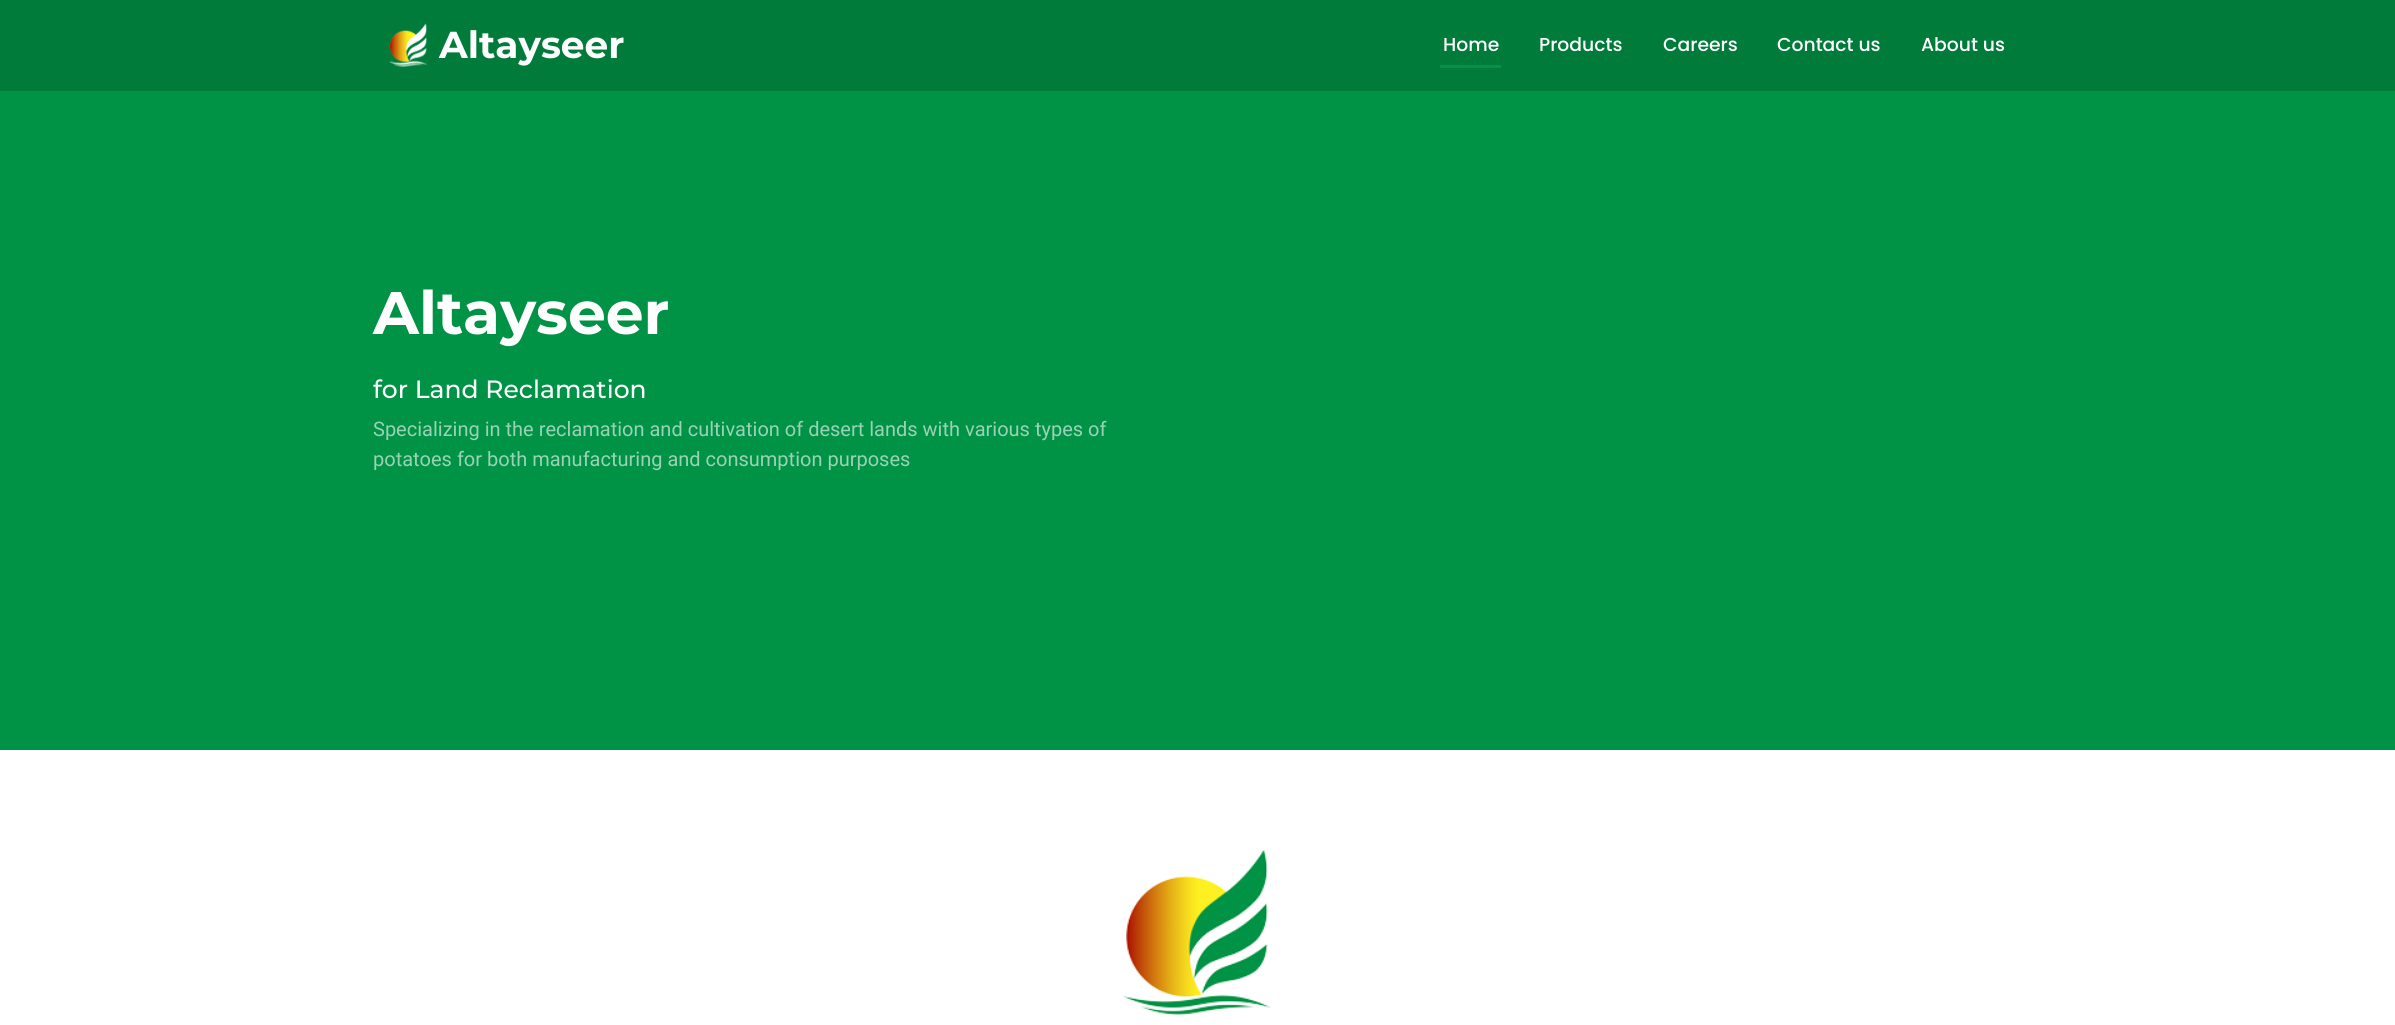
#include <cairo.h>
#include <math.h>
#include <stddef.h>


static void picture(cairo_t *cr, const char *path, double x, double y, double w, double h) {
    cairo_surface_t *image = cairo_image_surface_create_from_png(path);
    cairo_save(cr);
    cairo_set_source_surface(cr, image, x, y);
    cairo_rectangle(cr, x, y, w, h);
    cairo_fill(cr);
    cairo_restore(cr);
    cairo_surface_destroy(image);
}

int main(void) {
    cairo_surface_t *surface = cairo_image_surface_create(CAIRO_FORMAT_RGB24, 2395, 1025);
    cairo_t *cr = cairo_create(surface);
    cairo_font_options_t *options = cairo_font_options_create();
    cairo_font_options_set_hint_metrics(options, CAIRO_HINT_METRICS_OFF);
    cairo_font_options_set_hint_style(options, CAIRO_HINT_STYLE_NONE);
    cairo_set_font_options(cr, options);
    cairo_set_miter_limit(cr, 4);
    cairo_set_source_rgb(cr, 1, 1, 1);
    cairo_paint(cr);
    cairo_set_source_rgb(cr, 0, 0.482, 0.227);
    cairo_rectangle(cr, 0, 0, 2395, 91);
    cairo_fill(cr);
    picture(cr, "img1.png", 389, 23, 39, 44);
    cairo_select_font_face(cr, "Montserrat", CAIRO_FONT_SLANT_NORMAL, CAIRO_FONT_WEIGHT_BOLD);
    cairo_set_font_size(cr, 37.5);
    cairo_set_source_rgb(cr, 1, 1, 1);
    cairo_move_to(cr, 439, 58);
    cairo_show_text(cr, "Altayseer");
    cairo_select_font_face(cr, "Poppins Medium", CAIRO_FONT_SLANT_NORMAL, CAIRO_FONT_WEIGHT_NORMAL);
    cairo_set_font_size(cr, 18.75);
    cairo_move_to(cr, 1443, 51);
    cairo_show_text(cr, "Home");
    cairo_set_source_rgb(cr, 0, 0.573, 0.271);
    cairo_rectangle(cr, 1440, 65, 61, 3);
    cairo_fill(cr);
    cairo_set_source_rgb(cr, 1, 1, 1);
    cairo_move_to(cr, 1539, 51);
    cairo_show_text(cr, "Products");
    cairo_move_to(cr, 1663, 51);
    cairo_show_text(cr, "Careers");
    cairo_move_to(cr, 1777, 51);
    cairo_show_text(cr, "Contact us");
    cairo_move_to(cr, 1921, 51);
    cairo_show_text(cr, "About us");
    cairo_set_source_rgb(cr, 0, 0.573, 0.271);
    cairo_rectangle(cr, 0, 91, 2395, 659);
    cairo_fill(cr);
    cairo_select_font_face(cr, "Montserrat", CAIRO_FONT_SLANT_NORMAL, CAIRO_FONT_WEIGHT_BOLD);
    cairo_set_font_size(cr, 60);
    cairo_set_source_rgb(cr, 1, 1, 1);
    cairo_move_to(cr, 373, 334);
    cairo_show_text(cr, "Altayseer");
    cairo_select_font_face(cr, "Montserrat Medium", CAIRO_FONT_SLANT_NORMAL, CAIRO_FONT_WEIGHT_NORMAL);
    cairo_set_font_size(cr, 25);
    cairo_move_to(cr, 373, 398);
    cairo_show_text(cr, "for Land Reclamation");
    cairo_select_font_face(cr, "Roboto", CAIRO_FONT_SLANT_NORMAL, CAIRO_FONT_WEIGHT_NORMAL);
    cairo_set_font_size(cr, 20);
    cairo_set_source_rgb(cr, 0.6, 0.827, 0.71);
    cairo_move_to(cr, 373, 436);
    cairo_show_text(cr, "Specializing in the reclamation and cultivation of desert lands with various types of");
    cairo_move_to(cr, 373, 466);
    cairo_show_text(cr, "potatoes for both manufacturing and consumption purposes");
    picture(cr, "img2.png", 1122, 850, 149, 166);
    cairo_surface_write_to_png(surface, "page.png");
    cairo_font_options_destroy(options);
    cairo_destroy(cr);
    cairo_surface_destroy(surface);
    return 0;
}
